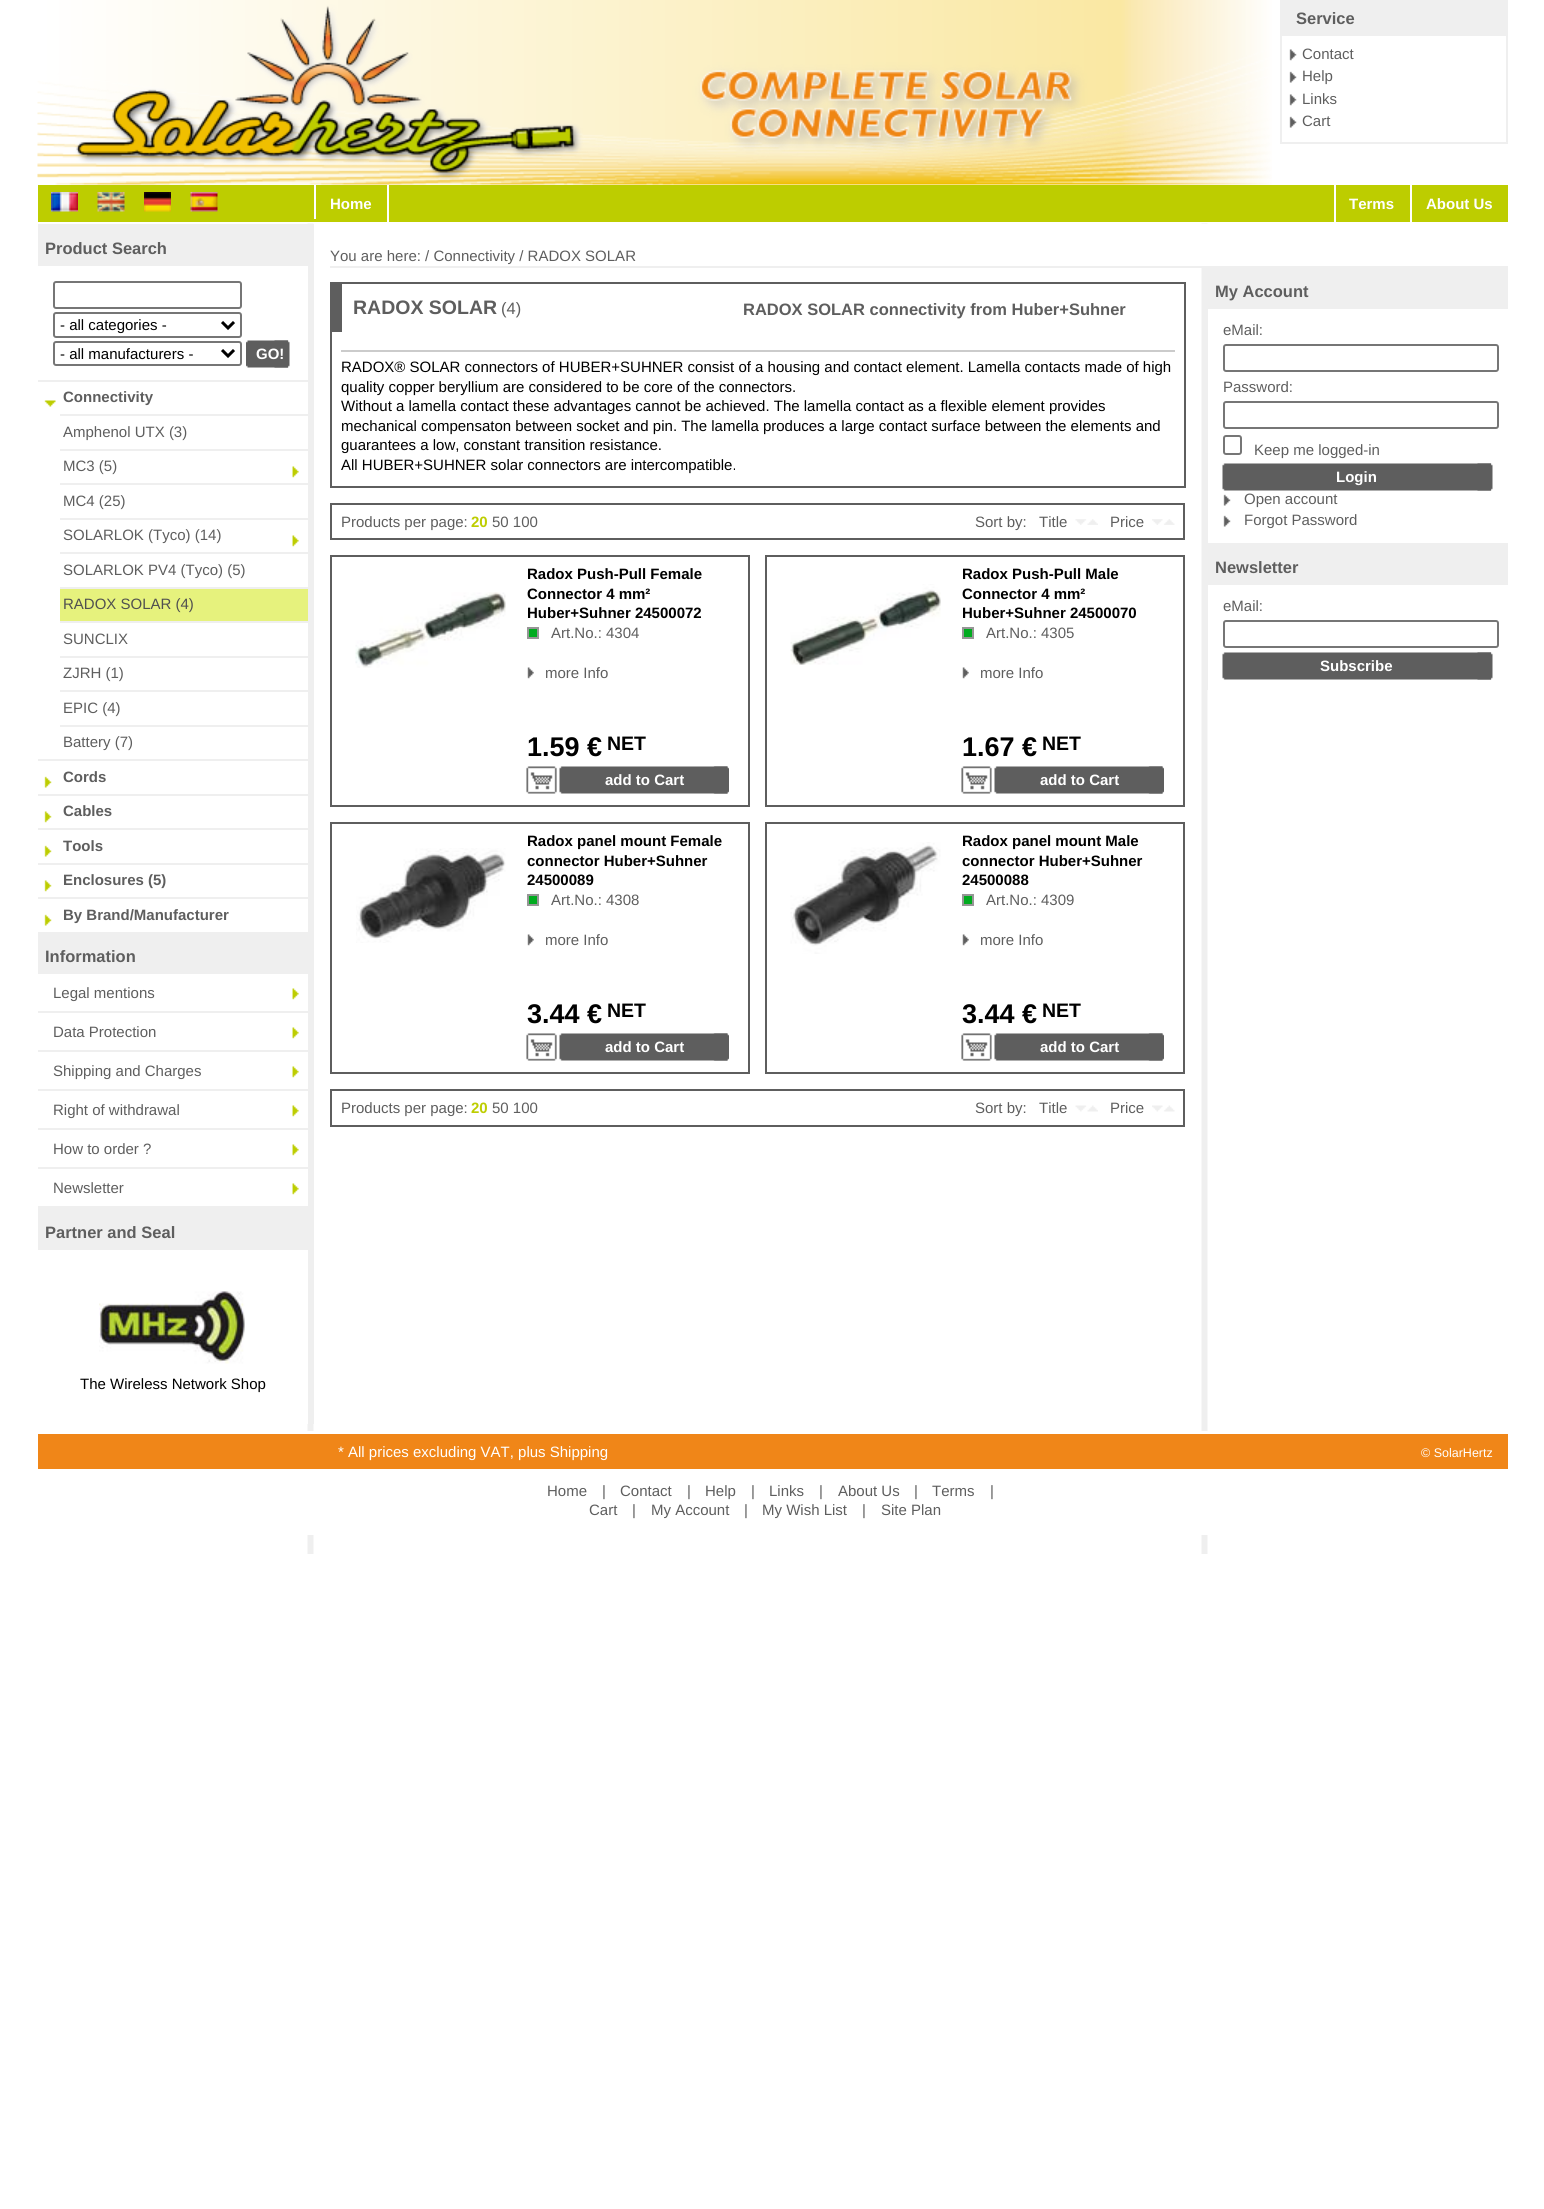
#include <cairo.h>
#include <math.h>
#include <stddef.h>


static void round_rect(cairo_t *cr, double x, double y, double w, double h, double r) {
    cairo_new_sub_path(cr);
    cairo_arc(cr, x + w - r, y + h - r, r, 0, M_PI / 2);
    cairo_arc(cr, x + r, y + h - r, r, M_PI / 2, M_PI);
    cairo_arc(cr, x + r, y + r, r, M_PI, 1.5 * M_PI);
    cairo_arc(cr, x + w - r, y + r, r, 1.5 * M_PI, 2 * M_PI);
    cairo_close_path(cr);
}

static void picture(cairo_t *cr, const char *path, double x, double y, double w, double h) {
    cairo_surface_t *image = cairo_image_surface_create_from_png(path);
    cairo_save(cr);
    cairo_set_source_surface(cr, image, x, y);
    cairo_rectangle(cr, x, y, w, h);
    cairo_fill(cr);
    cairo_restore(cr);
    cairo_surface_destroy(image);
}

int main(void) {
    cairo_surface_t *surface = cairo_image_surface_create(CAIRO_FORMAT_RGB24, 1544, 2209);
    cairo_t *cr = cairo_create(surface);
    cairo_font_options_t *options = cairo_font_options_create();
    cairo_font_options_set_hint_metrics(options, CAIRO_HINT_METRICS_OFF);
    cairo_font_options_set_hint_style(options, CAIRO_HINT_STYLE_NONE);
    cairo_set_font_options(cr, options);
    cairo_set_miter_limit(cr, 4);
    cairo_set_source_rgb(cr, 1, 1, 1);
    cairo_paint(cr);
    picture(cr, "img1.png", 37, 0, 1235, 185);
    cairo_rectangle(cr, 1281, 1, 226, 142);
    cairo_set_source_rgb(cr, 0.937, 0.937, 0.937);
    cairo_stroke(cr);
    cairo_rectangle(cr, 1282, 2, 224, 34);
    cairo_fill(cr);
    cairo_select_font_face(cr, "Liberation Sans", CAIRO_FONT_SLANT_NORMAL, CAIRO_FONT_WEIGHT_BOLD);
    cairo_set_font_size(cr, 16.5);
    cairo_set_source_rgb(cr, 0.369, 0.369, 0.369);
    cairo_move_to(cr, 1296, 24);
    cairo_show_text(cr, "Service");
    picture(cr, "img2.png", 1289, 49, 8, 12);
    cairo_select_font_face(cr, "Liberation Sans", CAIRO_FONT_SLANT_NORMAL, CAIRO_FONT_WEIGHT_NORMAL);
    cairo_set_font_size(cr, 15);
    cairo_move_to(cr, 1302, 59);
    cairo_show_text(cr, "Contact");
    picture(cr, "img3.png", 1289, 71, 8, 12);
    cairo_move_to(cr, 1302, 81);
    cairo_show_text(cr, "Help");
    picture(cr, "img2.png", 1289, 94, 8, 12);
    cairo_move_to(cr, 1302, 104);
    cairo_show_text(cr, "Links");
    picture(cr, "img3.png", 1289, 116, 8, 12);
    cairo_move_to(cr, 1302, 126);
    cairo_show_text(cr, "Cart");
    cairo_set_source_rgb(cr, 0.741, 0.804, 0);
    cairo_rectangle(cr, 38, 185, 1470, 37);
    cairo_fill(cr);
    cairo_set_source_rgb(cr, 1, 1, 1);
    cairo_rectangle(cr, 314, 185, 2, 34);
    cairo_fill(cr);
    picture(cr, "img4.png", 51, 192, 27, 20);
    picture(cr, "img5.png", 97, 192, 28, 20);
    picture(cr, "img6.png", 144, 192, 27, 20);
    picture(cr, "img7.png", 190, 192, 28, 20);
    cairo_rectangle(cr, 387, 185, 2, 37);
    cairo_fill(cr);
    cairo_select_font_face(cr, "Liberation Sans", CAIRO_FONT_SLANT_NORMAL, CAIRO_FONT_WEIGHT_BOLD);
    cairo_move_to(cr, 330, 209);
    cairo_show_text(cr, "Home");
    cairo_rectangle(cr, 1334, 185, 2, 37);
    cairo_fill(cr);
    cairo_move_to(cr, 1349, 209);
    cairo_show_text(cr, "Terms");
    cairo_rectangle(cr, 1410, 185, 2, 37);
    cairo_fill(cr);
    cairo_move_to(cr, 1426, 209);
    cairo_show_text(cr, "About Us");
    picture(cr, "img8.png", 307, 223, 901, 1331);
    cairo_rectangle(cr, 307, 266, 1, 1158);
    cairo_fill(cr);
    cairo_set_source_rgb(cr, 0.937, 0.937, 0.937);
    cairo_rectangle(cr, 313, 224, 1, 1200);
    cairo_fill(cr);
    cairo_rectangle(cr, 38, 224, 270, 42);
    cairo_fill(cr);
    cairo_set_font_size(cr, 16.5);
    cairo_set_source_rgb(cr, 0.369, 0.369, 0.369);
    cairo_move_to(cr, 45, 254);
    cairo_show_text(cr, "Product Search");
    round_rect(cr, 54, 282, 187, 26, 2);
    cairo_set_source_rgb(cr, 0.463, 0.463, 0.463);
    cairo_stroke(cr);
    round_rect(cr, 54, 313, 187, 24, 2);
    cairo_stroke(cr);
    cairo_new_path(cr);
    cairo_move_to(cr, 222, 322);
    cairo_line_to(cr, 228, 328);
    cairo_line_to(cr, 234, 322);
    cairo_set_source_rgb(cr, 0, 0, 0);
    cairo_set_line_width(cr, 3);
    cairo_stroke(cr);
    cairo_select_font_face(cr, "Liberation Sans", CAIRO_FONT_SLANT_NORMAL, CAIRO_FONT_WEIGHT_NORMAL);
    cairo_set_font_size(cr, 15);
    cairo_move_to(cr, 60, 330);
    cairo_show_text(cr, "- all categories -");
    round_rect(cr, 54, 342, 187, 23, 2);
    cairo_set_source_rgb(cr, 0.463, 0.463, 0.463);
    cairo_set_line_width(cr, 2);
    cairo_stroke(cr);
    cairo_new_path(cr);
    cairo_move_to(cr, 222, 350);
    cairo_line_to(cr, 228, 356);
    cairo_line_to(cr, 234, 350);
    cairo_set_source_rgb(cr, 0, 0, 0);
    cairo_set_line_width(cr, 3);
    cairo_stroke(cr);
    cairo_move_to(cr, 60, 359);
    cairo_show_text(cr, "- all manufacturers -");
    picture(cr, "img9.png", 274, 340, 16, 28);
    picture(cr, "img10.png", 246, 340, 42, 28);
    cairo_select_font_face(cr, "Liberation Sans", CAIRO_FONT_SLANT_NORMAL, CAIRO_FONT_WEIGHT_BOLD);
    cairo_set_source_rgb(cr, 1, 1, 1);
    cairo_move_to(cr, 256, 359);
    cairo_show_text(cr, "GO!");
    picture(cr, "img11.png", 44, 400, 12, 7);
    cairo_set_source_rgb(cr, 0.937, 0.937, 0.937);
    cairo_rectangle(cr, 38, 380, 270, 2);
    cairo_fill(cr);
    cairo_set_source_rgb(cr, 0.369, 0.369, 0.369);
    cairo_move_to(cr, 63, 402);
    cairo_show_text(cr, "Connectivity");
    cairo_set_source_rgb(cr, 0.937, 0.937, 0.937);
    cairo_rectangle(cr, 60, 414, 248, 2);
    cairo_fill(cr);
    cairo_select_font_face(cr, "Liberation Sans", CAIRO_FONT_SLANT_NORMAL, CAIRO_FONT_WEIGHT_NORMAL);
    cairo_set_source_rgb(cr, 0.369, 0.369, 0.369);
    cairo_move_to(cr, 63, 437);
    cairo_show_text(cr, "Amphenol UTX (3)");
    picture(cr, "img12.png", 292, 466, 7, 12);
    cairo_set_source_rgb(cr, 0.937, 0.937, 0.937);
    cairo_rectangle(cr, 60, 449, 248, 2);
    cairo_fill(cr);
    cairo_set_source_rgb(cr, 0.369, 0.369, 0.369);
    cairo_move_to(cr, 63, 471);
    cairo_show_text(cr, "MC3 (5)");
    cairo_set_source_rgb(cr, 0.937, 0.937, 0.937);
    cairo_rectangle(cr, 60, 483, 248, 2);
    cairo_fill(cr);
    cairo_set_source_rgb(cr, 0.369, 0.369, 0.369);
    cairo_move_to(cr, 63, 506);
    cairo_show_text(cr, "MC4 (25)");
    picture(cr, "img12.png", 292, 535, 7, 12);
    cairo_set_source_rgb(cr, 0.937, 0.937, 0.937);
    cairo_rectangle(cr, 60, 518, 248, 2);
    cairo_fill(cr);
    cairo_set_source_rgb(cr, 0.369, 0.369, 0.369);
    cairo_move_to(cr, 63, 540);
    cairo_show_text(cr, "SOLARLOK (Tyco) (14)");
    cairo_set_source_rgb(cr, 0.937, 0.937, 0.937);
    cairo_rectangle(cr, 60, 552, 248, 2);
    cairo_fill(cr);
    cairo_set_source_rgb(cr, 0.369, 0.369, 0.369);
    cairo_move_to(cr, 63, 575);
    cairo_show_text(cr, "SOLARLOK PV4 (Tyco) (5)");
    cairo_set_source_rgb(cr, 0.902, 0.949, 0.49);
    cairo_rectangle(cr, 60, 589, 248, 32);
    cairo_fill(cr);
    cairo_set_source_rgb(cr, 0.937, 0.937, 0.937);
    cairo_rectangle(cr, 60, 587, 248, 2);
    cairo_fill(cr);
    cairo_set_source_rgb(cr, 0.314, 0.314, 0.314);
    cairo_move_to(cr, 63, 609);
    cairo_show_text(cr, "RADOX SOLAR (4)");
    cairo_set_source_rgb(cr, 0.937, 0.937, 0.937);
    cairo_rectangle(cr, 60, 621, 248, 2);
    cairo_fill(cr);
    cairo_set_source_rgb(cr, 0.369, 0.369, 0.369);
    cairo_move_to(cr, 63, 644);
    cairo_show_text(cr, "SUNCLIX");
    cairo_set_source_rgb(cr, 0.937, 0.937, 0.937);
    cairo_rectangle(cr, 60, 656, 248, 2);
    cairo_fill(cr);
    cairo_set_source_rgb(cr, 0.369, 0.369, 0.369);
    cairo_move_to(cr, 63, 678);
    cairo_show_text(cr, "ZJRH (1)");
    cairo_set_source_rgb(cr, 0.937, 0.937, 0.937);
    cairo_rectangle(cr, 60, 690, 248, 2);
    cairo_fill(cr);
    cairo_set_source_rgb(cr, 0.369, 0.369, 0.369);
    cairo_move_to(cr, 63, 713);
    cairo_show_text(cr, "EPIC (4)");
    cairo_set_source_rgb(cr, 0.937, 0.937, 0.937);
    cairo_rectangle(cr, 60, 725, 248, 2);
    cairo_fill(cr);
    cairo_set_source_rgb(cr, 0.369, 0.369, 0.369);
    cairo_move_to(cr, 63, 747);
    cairo_show_text(cr, "Battery (7)");
    picture(cr, "img13.png", 44, 776, 8, 12);
    cairo_set_source_rgb(cr, 0.937, 0.937, 0.937);
    cairo_rectangle(cr, 38, 759, 270, 2);
    cairo_fill(cr);
    cairo_select_font_face(cr, "Liberation Sans", CAIRO_FONT_SLANT_NORMAL, CAIRO_FONT_WEIGHT_BOLD);
    cairo_set_source_rgb(cr, 0.369, 0.369, 0.369);
    cairo_move_to(cr, 63, 782);
    cairo_show_text(cr, "Cords");
    picture(cr, "img14.png", 44, 811, 8, 12);
    cairo_set_source_rgb(cr, 0.937, 0.937, 0.937);
    cairo_rectangle(cr, 38, 794, 270, 2);
    cairo_fill(cr);
    cairo_set_source_rgb(cr, 0.369, 0.369, 0.369);
    cairo_move_to(cr, 63, 816);
    cairo_show_text(cr, "Cables");
    picture(cr, "img13.png", 44, 845, 8, 12);
    cairo_set_source_rgb(cr, 0.937, 0.937, 0.937);
    cairo_rectangle(cr, 38, 828, 270, 2);
    cairo_fill(cr);
    cairo_set_source_rgb(cr, 0.369, 0.369, 0.369);
    cairo_move_to(cr, 63, 851);
    cairo_show_text(cr, "Tools");
    picture(cr, "img14.png", 44, 880, 8, 12);
    cairo_set_source_rgb(cr, 0.937, 0.937, 0.937);
    cairo_rectangle(cr, 38, 863, 270, 2);
    cairo_fill(cr);
    cairo_set_source_rgb(cr, 0.369, 0.369, 0.369);
    cairo_move_to(cr, 63, 885);
    cairo_show_text(cr, "Enclosures (5)");
    picture(cr, "img13.png", 44, 914, 8, 12);
    cairo_set_source_rgb(cr, 0.937, 0.937, 0.937);
    cairo_rectangle(cr, 38, 897, 270, 2);
    cairo_fill(cr);
    cairo_set_source_rgb(cr, 0.369, 0.369, 0.369);
    cairo_move_to(cr, 63, 920);
    cairo_show_text(cr, "By Brand/Manufacturer");
    cairo_set_source_rgb(cr, 0.937, 0.937, 0.937);
    cairo_rectangle(cr, 38, 932, 270, 42);
    cairo_fill(cr);
    cairo_set_font_size(cr, 16.5);
    cairo_set_source_rgb(cr, 0.369, 0.369, 0.369);
    cairo_move_to(cr, 45, 962);
    cairo_show_text(cr, "Information");
    picture(cr, "img12.png", 292, 988, 7, 12);
    cairo_set_source_rgb(cr, 0.937, 0.937, 0.937);
    cairo_rectangle(cr, 38, 1011, 270, 2);
    cairo_fill(cr);
    cairo_select_font_face(cr, "Liberation Sans", CAIRO_FONT_SLANT_NORMAL, CAIRO_FONT_WEIGHT_NORMAL);
    cairo_set_font_size(cr, 15);
    cairo_set_source_rgb(cr, 0.369, 0.369, 0.369);
    cairo_move_to(cr, 53, 998);
    cairo_show_text(cr, "Legal mentions");
    picture(cr, "img12.png", 292, 1027, 7, 12);
    cairo_set_source_rgb(cr, 0.937, 0.937, 0.937);
    cairo_rectangle(cr, 38, 1050, 270, 2);
    cairo_fill(cr);
    cairo_set_source_rgb(cr, 0.369, 0.369, 0.369);
    cairo_move_to(cr, 53, 1037);
    cairo_show_text(cr, "Data Protection");
    picture(cr, "img12.png", 292, 1066, 7, 12);
    cairo_set_source_rgb(cr, 0.937, 0.937, 0.937);
    cairo_rectangle(cr, 38, 1089, 270, 2);
    cairo_fill(cr);
    cairo_set_source_rgb(cr, 0.369, 0.369, 0.369);
    cairo_move_to(cr, 53, 1076);
    cairo_show_text(cr, "Shipping and Charges");
    picture(cr, "img12.png", 292, 1105, 7, 12);
    cairo_set_source_rgb(cr, 0.937, 0.937, 0.937);
    cairo_rectangle(cr, 38, 1128, 270, 2);
    cairo_fill(cr);
    cairo_set_source_rgb(cr, 0.369, 0.369, 0.369);
    cairo_move_to(cr, 53, 1115);
    cairo_show_text(cr, "Right of withdrawal");
    picture(cr, "img12.png", 292, 1144, 7, 12);
    cairo_set_source_rgb(cr, 0.937, 0.937, 0.937);
    cairo_rectangle(cr, 38, 1167, 270, 2);
    cairo_fill(cr);
    cairo_set_source_rgb(cr, 0.369, 0.369, 0.369);
    cairo_move_to(cr, 53, 1154);
    cairo_show_text(cr, "How to order ?");
    picture(cr, "img12.png", 292, 1183, 7, 12);
    cairo_set_source_rgb(cr, 0.937, 0.937, 0.937);
    cairo_rectangle(cr, 38, 1206, 270, 44);
    cairo_fill(cr);
    cairo_set_source_rgb(cr, 0.369, 0.369, 0.369);
    cairo_move_to(cr, 53, 1193);
    cairo_show_text(cr, "Newsletter");
    cairo_select_font_face(cr, "Liberation Sans", CAIRO_FONT_SLANT_NORMAL, CAIRO_FONT_WEIGHT_BOLD);
    cairo_set_font_size(cr, 16.5);
    cairo_move_to(cr, 45, 1238);
    cairo_show_text(cr, "Partner and Seal");
    picture(cr, "img15.png", 99, 1291, 146, 73);
    cairo_select_font_face(cr, "Liberation Sans", CAIRO_FONT_SLANT_NORMAL, CAIRO_FONT_WEIGHT_NORMAL);
    cairo_set_font_size(cr, 15);
    cairo_set_source_rgb(cr, 0, 0, 0);
    cairo_move_to(cr, 80, 1389);
    cairo_show_text(cr, "The Wireless Network Shop");
    cairo_set_source_rgb(cr, 1, 1, 1);
    cairo_rectangle(cr, 1201, 224, 7, 42);
    cairo_fill(cr);
    cairo_set_source_rgb(cr, 0.937, 0.937, 0.937);
    cairo_rectangle(cr, 330, 266, 1178, 2);
    cairo_fill(cr);
    cairo_set_source_rgb(cr, 0.369, 0.369, 0.369);
    cairo_move_to(cr, 330, 261);
    cairo_show_text(cr, "You are here: / Connectivity / RADOX SOLAR");
    cairo_rectangle(cr, 342, 282, 843, 2);
    cairo_fill(cr);
    cairo_rectangle(cr, 1184, 282, 2, 50);
    cairo_fill(cr);
    cairo_rectangle(cr, 330, 282, 12, 50);
    cairo_fill(cr);
    cairo_select_font_face(cr, "Liberation Sans", CAIRO_FONT_SLANT_NORMAL, CAIRO_FONT_WEIGHT_BOLD);
    cairo_set_font_size(cr, 19.5);
    cairo_move_to(cr, 353, 314);
    cairo_show_text(cr, "RADOX SOLAR");
    cairo_select_font_face(cr, "Liberation Sans", CAIRO_FONT_SLANT_NORMAL, CAIRO_FONT_WEIGHT_NORMAL);
    cairo_set_font_size(cr, 16.5);
    cairo_move_to(cr, 501, 314);
    cairo_show_text(cr, "(4)");
    cairo_select_font_face(cr, "Liberation Sans", CAIRO_FONT_SLANT_NORMAL, CAIRO_FONT_WEIGHT_BOLD);
    cairo_move_to(cr, 743, 315);
    cairo_show_text(cr, "RADOX SOLAR connectivity from Huber+Suhner");
    cairo_rectangle(cr, 1184, 332, 2, 156);
    cairo_fill(cr);
    cairo_rectangle(cr, 330, 486, 855, 2);
    cairo_fill(cr);
    cairo_rectangle(cr, 330, 332, 2, 156);
    cairo_fill(cr);
    cairo_set_source_rgb(cr, 0.796, 0.796, 0.796);
    cairo_rectangle(cr, 341, 350, 834, 2);
    cairo_fill(cr);
    cairo_select_font_face(cr, "Liberation Sans", CAIRO_FONT_SLANT_NORMAL, CAIRO_FONT_WEIGHT_NORMAL);
    cairo_set_font_size(cr, 15);
    cairo_set_source_rgb(cr, 0, 0, 0);
    cairo_move_to(cr, 341, 372);
    cairo_show_text(cr, "RADOX® SOLAR connectors of HUBER+SUHNER consist of a housing and contact element. Lamella contacts made of high");
    cairo_move_to(cr, 341, 392);
    cairo_show_text(cr, "quality copper beryllium are considered to be core of the connectors.");
    cairo_move_to(cr, 341, 411);
    cairo_show_text(cr, "Without a lamella contact these advantages cannot be achieved. The lamella contact as a flexible element provides");
    cairo_move_to(cr, 341, 431);
    cairo_show_text(cr, "mechanical compensaton between socket and pin. The lamella produces a large contact surface between the elements and");
    cairo_move_to(cr, 341, 450);
    cairo_show_text(cr, "guarantees a low, constant transition resistance.");
    cairo_move_to(cr, 341, 470);
    cairo_show_text(cr, "All HUBER+SUHNER solar connectors are intercompatible.");
    cairo_rectangle(cr, 331, 504, 853, 35);
    cairo_set_source_rgb(cr, 0.369, 0.369, 0.369);
    cairo_set_line_width(cr, 2);
    cairo_stroke(cr);
    cairo_move_to(cr, 341, 527);
    cairo_show_text(cr, "Products per page:");
    cairo_select_font_face(cr, "Liberation Sans", CAIRO_FONT_SLANT_NORMAL, CAIRO_FONT_WEIGHT_BOLD);
    cairo_set_source_rgb(cr, 0.741, 0.804, 0);
    cairo_move_to(cr, 471, 527);
    cairo_show_text(cr, "20");
    cairo_select_font_face(cr, "Liberation Sans", CAIRO_FONT_SLANT_NORMAL, CAIRO_FONT_WEIGHT_NORMAL);
    cairo_set_source_rgb(cr, 0.369, 0.369, 0.369);
    cairo_move_to(cr, 492, 527);
    cairo_show_text(cr, "50 100");
    cairo_move_to(cr, 975, 527);
    cairo_show_text(cr, "Sort by:");
    cairo_move_to(cr, 1039, 527);
    cairo_show_text(cr, "Title");
    picture(cr, "img16.png", 1075, 519, 23, 6);
    cairo_move_to(cr, 1110, 527);
    cairo_show_text(cr, "Price");
    picture(cr, "img17.png", 1152, 519, 23, 6);
    cairo_rectangle(cr, 331, 556, 418, 250);
    cairo_stroke(cr);
    picture(cr, "img18.png", 355, 592, 151, 76);
    cairo_select_font_face(cr, "Liberation Sans", CAIRO_FONT_SLANT_NORMAL, CAIRO_FONT_WEIGHT_BOLD);
    cairo_set_source_rgb(cr, 0, 0, 0);
    cairo_move_to(cr, 527, 579);
    cairo_show_text(cr, "Radox Push-Pull Female");
    cairo_move_to(cr, 527, 599);
    cairo_show_text(cr, "Connector 4 mm²");
    cairo_move_to(cr, 527, 618);
    cairo_show_text(cr, "Huber+Suhner 24500072");
    cairo_set_source_rgb(cr, 0, 0.671, 0.122);
    cairo_rectangle(cr, 528, 628, 10, 10);
    cairo_fill_preserve(cr);
    cairo_set_source_rgb(cr, 0.588, 0.588, 0.588);
    cairo_stroke(cr);
    cairo_select_font_face(cr, "Liberation Sans", CAIRO_FONT_SLANT_NORMAL, CAIRO_FONT_WEIGHT_NORMAL);
    cairo_set_source_rgb(cr, 0.369, 0.369, 0.369);
    cairo_move_to(cr, 551, 638);
    cairo_show_text(cr, "Art.No.: 4304");
    picture(cr, "img19.png", 527, 667, 7, 12);
    cairo_move_to(cr, 545, 678);
    cairo_show_text(cr, "more Info");
    cairo_select_font_face(cr, "Liberation Sans", CAIRO_FONT_SLANT_NORMAL, CAIRO_FONT_WEIGHT_BOLD);
    cairo_set_font_size(cr, 27);
    cairo_set_source_rgb(cr, 0, 0, 0);
    cairo_move_to(cr, 527, 756);
    cairo_show_text(cr, "1.59 €");
    cairo_set_font_size(cr, 19.5);
    cairo_move_to(cr, 607, 750);
    cairo_show_text(cr, "NET");
    picture(cr, "img20.png", 713, 766, 16, 28);
    picture(cr, "img21.png", 526, 766, 202, 28);
    cairo_set_font_size(cr, 15);
    cairo_set_source_rgb(cr, 1, 1, 1);
    cairo_move_to(cr, 605, 785);
    cairo_show_text(cr, "add to Cart");
    cairo_rectangle(cr, 766, 556, 418, 250);
    cairo_set_source_rgb(cr, 0.369, 0.369, 0.369);
    cairo_stroke(cr);
    picture(cr, "img22.png", 790, 584, 151, 81);
    cairo_set_source_rgb(cr, 0, 0, 0);
    cairo_move_to(cr, 962, 579);
    cairo_show_text(cr, "Radox Push-Pull Male");
    cairo_move_to(cr, 962, 599);
    cairo_show_text(cr, "Connector 4 mm²");
    cairo_move_to(cr, 962, 618);
    cairo_show_text(cr, "Huber+Suhner 24500070");
    cairo_set_source_rgb(cr, 0, 0.671, 0.122);
    cairo_rectangle(cr, 963, 628, 10, 10);
    cairo_fill_preserve(cr);
    cairo_set_source_rgb(cr, 0.588, 0.588, 0.588);
    cairo_stroke(cr);
    cairo_select_font_face(cr, "Liberation Sans", CAIRO_FONT_SLANT_NORMAL, CAIRO_FONT_WEIGHT_NORMAL);
    cairo_set_source_rgb(cr, 0.369, 0.369, 0.369);
    cairo_move_to(cr, 986, 638);
    cairo_show_text(cr, "Art.No.: 4305");
    picture(cr, "img19.png", 962, 667, 7, 12);
    cairo_move_to(cr, 980, 678);
    cairo_show_text(cr, "more Info");
    cairo_select_font_face(cr, "Liberation Sans", CAIRO_FONT_SLANT_NORMAL, CAIRO_FONT_WEIGHT_BOLD);
    cairo_set_font_size(cr, 27);
    cairo_set_source_rgb(cr, 0, 0, 0);
    cairo_move_to(cr, 962, 756);
    cairo_show_text(cr, "1.67 €");
    cairo_set_font_size(cr, 19.5);
    cairo_move_to(cr, 1042, 750);
    cairo_show_text(cr, "NET");
    picture(cr, "img20.png", 1148, 766, 16, 28);
    picture(cr, "img23.png", 961, 766, 202, 28);
    cairo_set_font_size(cr, 15);
    cairo_set_source_rgb(cr, 1, 1, 1);
    cairo_move_to(cr, 1040, 785);
    cairo_show_text(cr, "add to Cart");
    cairo_rectangle(cr, 331, 823, 418, 250);
    cairo_set_source_rgb(cr, 0.369, 0.369, 0.369);
    cairo_stroke(cr);
    picture(cr, "img24.png", 356, 848, 150, 95);
    cairo_set_source_rgb(cr, 0, 0, 0);
    cairo_move_to(cr, 527, 846);
    cairo_show_text(cr, "Radox panel mount Female");
    cairo_move_to(cr, 527, 866);
    cairo_show_text(cr, "connector Huber+Suhner");
    cairo_move_to(cr, 527, 885);
    cairo_show_text(cr, "24500089");
    cairo_set_source_rgb(cr, 0, 0.671, 0.122);
    cairo_rectangle(cr, 528, 895, 10, 10);
    cairo_fill_preserve(cr);
    cairo_set_source_rgb(cr, 0.588, 0.588, 0.588);
    cairo_stroke(cr);
    cairo_select_font_face(cr, "Liberation Sans", CAIRO_FONT_SLANT_NORMAL, CAIRO_FONT_WEIGHT_NORMAL);
    cairo_set_source_rgb(cr, 0.369, 0.369, 0.369);
    cairo_move_to(cr, 551, 905);
    cairo_show_text(cr, "Art.No.: 4308");
    picture(cr, "img19.png", 527, 934, 7, 12);
    cairo_move_to(cr, 545, 945);
    cairo_show_text(cr, "more Info");
    cairo_select_font_face(cr, "Liberation Sans", CAIRO_FONT_SLANT_NORMAL, CAIRO_FONT_WEIGHT_BOLD);
    cairo_set_font_size(cr, 27);
    cairo_set_source_rgb(cr, 0, 0, 0);
    cairo_move_to(cr, 527, 1023);
    cairo_show_text(cr, "3.44 €");
    cairo_set_font_size(cr, 19.5);
    cairo_move_to(cr, 607, 1017);
    cairo_show_text(cr, "NET");
    picture(cr, "img20.png", 713, 1033, 16, 28);
    picture(cr, "img21.png", 526, 1033, 202, 28);
    cairo_set_font_size(cr, 15);
    cairo_set_source_rgb(cr, 1, 1, 1);
    cairo_move_to(cr, 605, 1052);
    cairo_show_text(cr, "add to Cart");
    cairo_rectangle(cr, 766, 823, 418, 250);
    cairo_set_source_rgb(cr, 0.369, 0.369, 0.369);
    cairo_stroke(cr);
    picture(cr, "img25.png", 790, 842, 151, 112);
    cairo_set_source_rgb(cr, 0, 0, 0);
    cairo_move_to(cr, 962, 846);
    cairo_show_text(cr, "Radox panel mount Male");
    cairo_move_to(cr, 962, 866);
    cairo_show_text(cr, "connector Huber+Suhner");
    cairo_move_to(cr, 962, 885);
    cairo_show_text(cr, "24500088");
    cairo_set_source_rgb(cr, 0, 0.671, 0.122);
    cairo_rectangle(cr, 963, 895, 10, 10);
    cairo_fill_preserve(cr);
    cairo_set_source_rgb(cr, 0.588, 0.588, 0.588);
    cairo_stroke(cr);
    cairo_select_font_face(cr, "Liberation Sans", CAIRO_FONT_SLANT_NORMAL, CAIRO_FONT_WEIGHT_NORMAL);
    cairo_set_source_rgb(cr, 0.369, 0.369, 0.369);
    cairo_move_to(cr, 986, 905);
    cairo_show_text(cr, "Art.No.: 4309");
    picture(cr, "img19.png", 962, 934, 7, 12);
    cairo_move_to(cr, 980, 945);
    cairo_show_text(cr, "more Info");
    cairo_select_font_face(cr, "Liberation Sans", CAIRO_FONT_SLANT_NORMAL, CAIRO_FONT_WEIGHT_BOLD);
    cairo_set_font_size(cr, 27);
    cairo_set_source_rgb(cr, 0, 0, 0);
    cairo_move_to(cr, 962, 1023);
    cairo_show_text(cr, "3.44 €");
    cairo_set_font_size(cr, 19.5);
    cairo_move_to(cr, 1042, 1017);
    cairo_show_text(cr, "NET");
    picture(cr, "img20.png", 1148, 1033, 16, 28);
    picture(cr, "img23.png", 961, 1033, 202, 28);
    cairo_set_font_size(cr, 15);
    cairo_set_source_rgb(cr, 1, 1, 1);
    cairo_move_to(cr, 1040, 1052);
    cairo_show_text(cr, "add to Cart");
    cairo_rectangle(cr, 331, 1090, 853, 36);
    cairo_set_source_rgb(cr, 0.369, 0.369, 0.369);
    cairo_stroke(cr);
    cairo_select_font_face(cr, "Liberation Sans", CAIRO_FONT_SLANT_NORMAL, CAIRO_FONT_WEIGHT_NORMAL);
    cairo_move_to(cr, 341, 1113);
    cairo_show_text(cr, "Products per page:");
    cairo_select_font_face(cr, "Liberation Sans", CAIRO_FONT_SLANT_NORMAL, CAIRO_FONT_WEIGHT_BOLD);
    cairo_set_source_rgb(cr, 0.741, 0.804, 0);
    cairo_move_to(cr, 471, 1113);
    cairo_show_text(cr, "20");
    cairo_select_font_face(cr, "Liberation Sans", CAIRO_FONT_SLANT_NORMAL, CAIRO_FONT_WEIGHT_NORMAL);
    cairo_set_source_rgb(cr, 0.369, 0.369, 0.369);
    cairo_move_to(cr, 492, 1113);
    cairo_show_text(cr, "50 100");
    cairo_move_to(cr, 975, 1113);
    cairo_show_text(cr, "Sort by:");
    cairo_move_to(cr, 1039, 1113);
    cairo_show_text(cr, "Title");
    picture(cr, "img26.png", 1075, 1105, 23, 7);
    cairo_move_to(cr, 1110, 1113);
    cairo_show_text(cr, "Price");
    picture(cr, "img27.png", 1152, 1105, 23, 7);
    cairo_set_source_rgb(cr, 0.937, 0.937, 0.937);
    cairo_rectangle(cr, 1207, 268, 301, 41);
    cairo_fill(cr);
    cairo_select_font_face(cr, "Liberation Sans", CAIRO_FONT_SLANT_NORMAL, CAIRO_FONT_WEIGHT_BOLD);
    cairo_set_font_size(cr, 16.5);
    cairo_set_source_rgb(cr, 0.369, 0.369, 0.369);
    cairo_move_to(cr, 1215, 297);
    cairo_show_text(cr, "My Account");
    cairo_set_source_rgb(cr, 0.937, 0.937, 0.937);
    cairo_rectangle(cr, 1207, 309, 1, 234);
    cairo_fill(cr);
    cairo_select_font_face(cr, "Liberation Sans", CAIRO_FONT_SLANT_NORMAL, CAIRO_FONT_WEIGHT_NORMAL);
    cairo_set_font_size(cr, 15);
    cairo_set_source_rgb(cr, 0.369, 0.369, 0.369);
    cairo_move_to(cr, 1223, 335);
    cairo_show_text(cr, "eMail:");
    round_rect(cr, 1224, 345, 274, 26, 2);
    cairo_set_source_rgb(cr, 0.463, 0.463, 0.463);
    cairo_stroke(cr);
    cairo_set_source_rgb(cr, 0.369, 0.369, 0.369);
    cairo_move_to(cr, 1223, 392);
    cairo_show_text(cr, "Password:");
    round_rect(cr, 1224, 402, 274, 26, 2);
    cairo_set_source_rgb(cr, 0.463, 0.463, 0.463);
    cairo_stroke(cr);
    round_rect(cr, 1224, 436, 17, 18, 2);
    cairo_stroke(cr);
    cairo_set_source_rgb(cr, 0.369, 0.369, 0.369);
    cairo_move_to(cr, 1254, 455);
    cairo_show_text(cr, "Keep me logged-in");
    picture(cr, "img9.png", 1477, 463, 16, 28);
    picture(cr, "img28.png", 1222, 463, 269, 28);
    cairo_select_font_face(cr, "Liberation Sans", CAIRO_FONT_SLANT_NORMAL, CAIRO_FONT_WEIGHT_BOLD);
    cairo_set_source_rgb(cr, 1, 1, 1);
    cairo_move_to(cr, 1336, 482);
    cairo_show_text(cr, "Login");
    picture(cr, "img29.png", 1223, 494, 8, 12);
    cairo_select_font_face(cr, "Liberation Sans", CAIRO_FONT_SLANT_NORMAL, CAIRO_FONT_WEIGHT_NORMAL);
    cairo_set_source_rgb(cr, 0.369, 0.369, 0.369);
    cairo_move_to(cr, 1244, 504);
    cairo_show_text(cr, "Open account");
    picture(cr, "img29.png", 1223, 515, 8, 12);
    cairo_move_to(cr, 1244, 525);
    cairo_show_text(cr, "Forgot Password");
    cairo_set_source_rgb(cr, 0.937, 0.937, 0.937);
    cairo_rectangle(cr, 1207, 543, 301, 42);
    cairo_fill(cr);
    cairo_select_font_face(cr, "Liberation Sans", CAIRO_FONT_SLANT_NORMAL, CAIRO_FONT_WEIGHT_BOLD);
    cairo_set_font_size(cr, 16.5);
    cairo_set_source_rgb(cr, 0.369, 0.369, 0.369);
    cairo_move_to(cr, 1215, 573);
    cairo_show_text(cr, "Newsletter");
    cairo_set_source_rgb(cr, 0.937, 0.937, 0.937);
    cairo_rectangle(cr, 1207, 585, 1, 105);
    cairo_fill(cr);
    cairo_select_font_face(cr, "Liberation Sans", CAIRO_FONT_SLANT_NORMAL, CAIRO_FONT_WEIGHT_NORMAL);
    cairo_set_font_size(cr, 15);
    cairo_set_source_rgb(cr, 0.369, 0.369, 0.369);
    cairo_move_to(cr, 1223, 611);
    cairo_show_text(cr, "eMail:");
    round_rect(cr, 1224, 621, 274, 26, 2);
    cairo_set_source_rgb(cr, 0.463, 0.463, 0.463);
    cairo_stroke(cr);
    picture(cr, "img9.png", 1477, 652, 16, 28);
    picture(cr, "img28.png", 1222, 652, 269, 28);
    cairo_select_font_face(cr, "Liberation Sans", CAIRO_FONT_SLANT_NORMAL, CAIRO_FONT_WEIGHT_BOLD);
    cairo_set_source_rgb(cr, 1, 1, 1);
    cairo_move_to(cr, 1320, 671);
    cairo_show_text(cr, "Subscribe");
    cairo_set_source_rgb(cr, 0.941, 0.525, 0.094);
    cairo_rectangle(cr, 38, 1434, 1470, 35);
    cairo_fill(cr);
    cairo_set_source_rgb(cr, 1, 1, 1);
    cairo_rectangle(cr, 307, 1431, 901, 3);
    cairo_fill(cr);
    cairo_select_font_face(cr, "Liberation Sans", CAIRO_FONT_SLANT_NORMAL, CAIRO_FONT_WEIGHT_NORMAL);
    cairo_move_to(cr, 338, 1457);
    cairo_show_text(cr, "* All prices excluding VAT, plus Shipping");
    cairo_set_font_size(cr, 12.5);
    cairo_move_to(cr, 1421, 1457);
    cairo_show_text(cr, "© SolarHertz");
    cairo_rectangle(cr, 307, 1469, 901, 66);
    cairo_fill(cr);
    cairo_set_font_size(cr, 15);
    cairo_set_source_rgb(cr, 0.369, 0.369, 0.369);
    cairo_move_to(cr, 547, 1496);
    cairo_show_text(cr, "Home");
    cairo_move_to(cr, 602, 1496);
    cairo_show_text(cr, "|");
    cairo_move_to(cr, 620, 1496);
    cairo_show_text(cr, "Contact");
    cairo_move_to(cr, 687, 1496);
    cairo_show_text(cr, "|");
    cairo_move_to(cr, 705, 1496);
    cairo_show_text(cr, "Help");
    cairo_move_to(cr, 751, 1496);
    cairo_show_text(cr, "|");
    cairo_move_to(cr, 769, 1496);
    cairo_show_text(cr, "Links");
    cairo_move_to(cr, 819, 1496);
    cairo_show_text(cr, "|");
    cairo_move_to(cr, 838, 1496);
    cairo_show_text(cr, "About Us");
    cairo_move_to(cr, 914, 1496);
    cairo_show_text(cr, "|");
    cairo_move_to(cr, 932, 1496);
    cairo_show_text(cr, "Terms");
    cairo_move_to(cr, 990, 1496);
    cairo_show_text(cr, "|");
    cairo_move_to(cr, 589, 1515);
    cairo_show_text(cr, "Cart");
    cairo_move_to(cr, 632, 1515);
    cairo_show_text(cr, "|");
    cairo_move_to(cr, 651, 1515);
    cairo_show_text(cr, "My Account");
    cairo_move_to(cr, 744, 1515);
    cairo_show_text(cr, "|");
    cairo_move_to(cr, 762, 1515);
    cairo_show_text(cr, "My Wish List");
    cairo_move_to(cr, 862, 1515);
    cairo_show_text(cr, "|");
    cairo_move_to(cr, 881, 1515);
    cairo_show_text(cr, "Site Plan");
    cairo_surface_write_to_png(surface, "page.png");
    cairo_font_options_destroy(options);
    cairo_destroy(cr);
    cairo_surface_destroy(surface);
    return 0;
}
